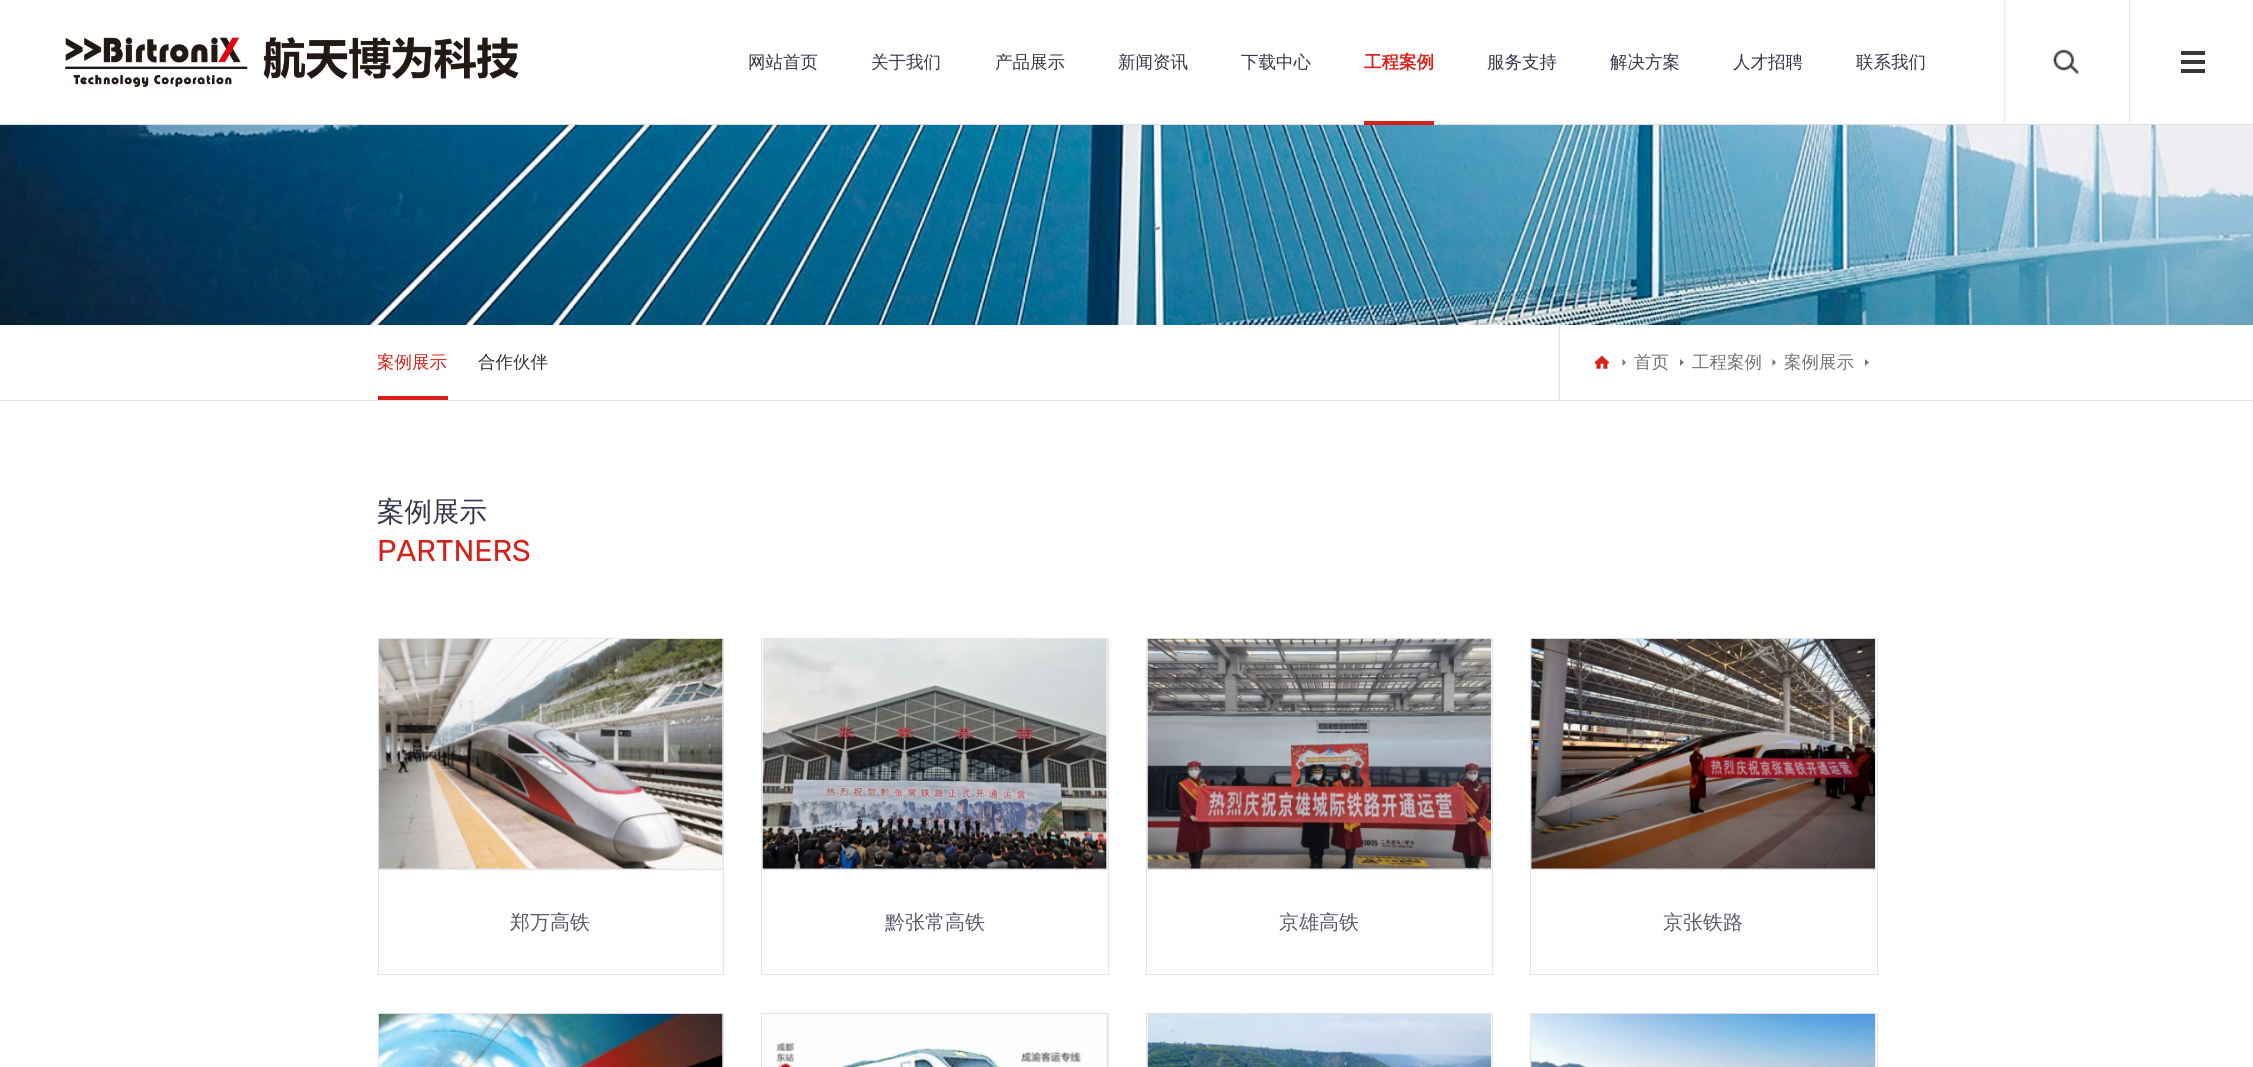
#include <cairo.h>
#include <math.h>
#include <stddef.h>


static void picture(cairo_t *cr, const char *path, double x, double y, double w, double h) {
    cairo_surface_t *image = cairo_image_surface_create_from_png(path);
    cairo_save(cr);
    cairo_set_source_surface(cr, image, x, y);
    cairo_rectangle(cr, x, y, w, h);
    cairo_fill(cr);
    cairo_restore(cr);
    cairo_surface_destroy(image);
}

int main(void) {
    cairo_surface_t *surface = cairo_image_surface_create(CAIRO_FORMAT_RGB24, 2253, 1067);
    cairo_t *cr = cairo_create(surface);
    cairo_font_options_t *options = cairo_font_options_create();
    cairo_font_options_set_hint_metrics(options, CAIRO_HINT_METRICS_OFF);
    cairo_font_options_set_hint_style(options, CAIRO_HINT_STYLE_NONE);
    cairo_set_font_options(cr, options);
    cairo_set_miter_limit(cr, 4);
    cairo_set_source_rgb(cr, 1, 1, 1);
    cairo_paint(cr);
    cairo_set_source_rgb(cr, 0.878, 0.878, 0.878);
    cairo_rectangle(cr, 0, 124, 2253, 1);
    cairo_fill(cr);
    picture(cr, "img1.png", 65, 37, 454, 50);
    cairo_select_font_face(cr, "WenQuanYi Zen Hei Medium", CAIRO_FONT_SLANT_NORMAL, CAIRO_FONT_WEIGHT_NORMAL);
    cairo_set_font_size(cr, 17.5);
    cairo_set_source_rgb(cr, 0.204, 0.212, 0.294);
    cairo_move_to(cr, 748, 68);
    cairo_show_text(cr, "网站首页");
    cairo_move_to(cr, 871, 68);
    cairo_show_text(cr, "关于我们");
    cairo_move_to(cr, 995, 68);
    cairo_show_text(cr, "产品展示");
    cairo_move_to(cr, 1118, 68);
    cairo_show_text(cr, "新闻资讯");
    cairo_move_to(cr, 1241, 68);
    cairo_show_text(cr, "下载中心");
    cairo_select_font_face(cr, "WenQuanYi Zen Hei", CAIRO_FONT_SLANT_NORMAL, CAIRO_FONT_WEIGHT_BOLD);
    cairo_set_source_rgb(cr, 0.847, 0.125, 0.098);
    cairo_move_to(cr, 1364, 68);
    cairo_show_text(cr, "工程案例");
    cairo_rectangle(cr, 1364, 121, 70, 4);
    cairo_fill(cr);
    cairo_select_font_face(cr, "WenQuanYi Zen Hei Medium", CAIRO_FONT_SLANT_NORMAL, CAIRO_FONT_WEIGHT_NORMAL);
    cairo_set_source_rgb(cr, 0.204, 0.212, 0.294);
    cairo_move_to(cr, 1487, 68);
    cairo_show_text(cr, "服务支持");
    cairo_move_to(cr, 1610, 68);
    cairo_show_text(cr, "解决方案");
    cairo_move_to(cr, 1733, 68);
    cairo_show_text(cr, "人才招聘");
    cairo_move_to(cr, 1856, 68);
    cairo_show_text(cr, "联系我们");
    cairo_set_source_rgb(cr, 0.918, 0.918, 0.918);
    cairo_rectangle(cr, 2004, 0, 1, 125);
    cairo_fill(cr);
    picture(cr, "img2.png", 2053, 49, 26, 25);
    cairo_rectangle(cr, 2129, 0, 1, 125);
    cairo_fill(cr);
    cairo_set_source_rgb(cr, 0.216, 0.216, 0.216);
    cairo_rectangle(cr, 2181, 51, 24, 4);
    cairo_fill(cr);
    cairo_rectangle(cr, 2181, 60, 24, 4);
    cairo_fill(cr);
    cairo_rectangle(cr, 2181, 69, 24, 4);
    cairo_fill(cr);
    picture(cr, "img3.png", 0, 125, 2253, 200);
    cairo_set_source_rgb(cr, 0.878, 0.878, 0.878);
    cairo_rectangle(cr, 0, 400, 2253, 1);
    cairo_fill(cr);
    cairo_save(cr);
    cairo_rectangle(cr, 378, 325, 1095, 75);
    cairo_clip(cr);
    cairo_set_source_rgb(cr, 0.847, 0.125, 0.098);
    cairo_move_to(cr, 377, 368);
    cairo_show_text(cr, "案例展示");
    cairo_restore(cr);
    cairo_set_source_rgb(cr, 0.847, 0.125, 0.098);
    cairo_rectangle(cr, 378, 396, 70, 4);
    cairo_fill(cr);
    cairo_set_source_rgb(cr, 0.2, 0.2, 0.2);
    cairo_move_to(cr, 478, 368);
    cairo_show_text(cr, "合作伙伴");
    cairo_set_source_rgb(cr, 0.878, 0.878, 0.878);
    cairo_rectangle(cr, 1559, 325, 1, 75);
    cairo_fill(cr);
    picture(cr, "img4.png", 1595, 356, 14, 13);
    cairo_set_source_rgb(cr, 0.459, 0.459, 0.459);
    cairo_new_path(cr);
    cairo_move_to(cr, 1622.5, 366);
    cairo_line_to(cr, 1622.5, 359);
    cairo_line_to(cr, 1626, 362.5);
    cairo_close_path(cr);
    cairo_fill(cr);
    cairo_set_source_rgb(cr, 0.451, 0.451, 0.451);
    cairo_move_to(cr, 1634, 368);
    cairo_show_text(cr, "首页");
    cairo_set_source_rgb(cr, 0.459, 0.459, 0.459);
    cairo_new_path(cr);
    cairo_move_to(cr, 1680, 366);
    cairo_line_to(cr, 1680, 359);
    cairo_line_to(cr, 1684, 362.5);
    cairo_close_path(cr);
    cairo_fill(cr);
    cairo_set_source_rgb(cr, 0.451, 0.451, 0.451);
    cairo_move_to(cr, 1692, 368);
    cairo_show_text(cr, "工程案例");
    cairo_set_source_rgb(cr, 0.459, 0.459, 0.459);
    cairo_new_path(cr);
    cairo_move_to(cr, 1772.5, 366);
    cairo_line_to(cr, 1772.5, 359);
    cairo_line_to(cr, 1776, 362.5);
    cairo_close_path(cr);
    cairo_fill(cr);
    cairo_set_source_rgb(cr, 0.451, 0.451, 0.451);
    cairo_move_to(cr, 1784, 368);
    cairo_show_text(cr, "案例展示");
    cairo_set_source_rgb(cr, 0.459, 0.459, 0.459);
    cairo_new_path(cr);
    cairo_move_to(cr, 1865, 366);
    cairo_line_to(cr, 1865, 359);
    cairo_line_to(cr, 1869, 362.5);
    cairo_close_path(cr);
    cairo_fill(cr);
    cairo_set_font_size(cr, 27.5);
    cairo_set_source_rgb(cr, 0.204, 0.212, 0.294);
    cairo_move_to(cr, 377, 521);
    cairo_show_text(cr, "案例展示");
    cairo_select_font_face(cr, "Rubik", CAIRO_FONT_SLANT_NORMAL, CAIRO_FONT_WEIGHT_NORMAL);
    cairo_set_font_size(cr, 30);
    cairo_set_source_rgb(cr, 0.847, 0.125, 0.098);
    cairo_move_to(cr, 377, 561);
    cairo_show_text(cr, "PARTNERS");
    cairo_rectangle(cr, 378.5, 638.5, 345, 336);
    cairo_set_source_rgb(cr, 0.89, 0.89, 0.922);
    cairo_set_line_width(cr, 1);
    cairo_stroke(cr);
    cairo_set_source_rgb(cr, 0.918, 0.922, 0.961);
    cairo_rectangle(cr, 379, 639, 344, 230);
    cairo_fill(cr);
    picture(cr, "img5.png", 378, 638, 345, 231);
    cairo_set_source_rgb(cr, 0.89, 0.89, 0.922);
    cairo_rectangle(cr, 379, 869, 344, 1);
    cairo_fill(cr);
    cairo_select_font_face(cr, "WenQuanYi Zen Hei Medium", CAIRO_FONT_SLANT_NORMAL, CAIRO_FONT_WEIGHT_NORMAL);
    cairo_set_font_size(cr, 20);
    cairo_set_source_rgb(cr, 0.345, 0.349, 0.427);
    cairo_move_to(cr, 510, 929);
    cairo_show_text(cr, "郑万高铁");
    cairo_rectangle(cr, 761.5, 638.5, 347, 336);
    cairo_set_source_rgb(cr, 0.89, 0.89, 0.922);
    cairo_stroke(cr);
    cairo_set_source_rgb(cr, 0.918, 0.922, 0.961);
    cairo_rectangle(cr, 763, 639, 345, 230);
    cairo_fill(cr);
    picture(cr, "img6.png", 762, 639, 345, 230);
    cairo_set_source_rgb(cr, 0.89, 0.89, 0.922);
    cairo_rectangle(cr, 763, 869, 345, 1);
    cairo_fill(cr);
    cairo_set_source_rgb(cr, 0.345, 0.349, 0.427);
    cairo_move_to(cr, 885, 929);
    cairo_show_text(cr, "黔张常高铁");
    cairo_rectangle(cr, 1146.5, 638.5, 346, 336);
    cairo_set_source_rgb(cr, 0.89, 0.89, 0.922);
    cairo_stroke(cr);
    cairo_set_source_rgb(cr, 0.918, 0.922, 0.961);
    cairo_rectangle(cr, 1148, 868, 343, 1);
    cairo_fill(cr);
    picture(cr, "img7.png", 1147, 638, 345, 231);
    cairo_set_source_rgb(cr, 0.89, 0.89, 0.922);
    cairo_rectangle(cr, 1148, 869, 343, 1);
    cairo_fill(cr);
    cairo_set_source_rgb(cr, 0.345, 0.349, 0.427);
    cairo_move_to(cr, 1279, 929);
    cairo_show_text(cr, "京雄高铁");
    cairo_rectangle(cr, 1530.5, 638.5, 347, 336);
    cairo_set_source_rgb(cr, 0.89, 0.89, 0.922);
    cairo_stroke(cr);
    cairo_set_source_rgb(cr, 0.918, 0.922, 0.961);
    cairo_rectangle(cr, 1531, 639, 345, 230);
    cairo_fill(cr);
    picture(cr, "img8.png", 1531, 638, 344, 231);
    cairo_set_source_rgb(cr, 0.89, 0.89, 0.922);
    cairo_rectangle(cr, 1531, 869, 345, 1);
    cairo_fill(cr);
    cairo_set_source_rgb(cr, 0.345, 0.349, 0.427);
    cairo_move_to(cr, 1663, 929);
    cairo_show_text(cr, "京张铁路");
    cairo_rectangle(cr, 378.5, 1013.5, 345, 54);
    cairo_set_source_rgb(cr, 0.89, 0.89, 0.922);
    cairo_stroke(cr);
    cairo_set_source_rgb(cr, 0.918, 0.922, 0.961);
    cairo_rectangle(cr, 722, 1014, 1, 53);
    cairo_fill(cr);
    picture(cr, "img9.png", 378, 1013, 345, 54);
    cairo_rectangle(cr, 761.5, 1013.5, 347, 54);
    cairo_set_source_rgb(cr, 0.89, 0.89, 0.922);
    cairo_stroke(cr);
    cairo_set_source_rgb(cr, 0.918, 0.922, 0.961);
    cairo_rectangle(cr, 1106, 1014, 2, 53);
    cairo_fill(cr);
    picture(cr, "img10.png", 763, 1014, 344, 53);
    cairo_rectangle(cr, 1146.5, 1013.5, 346, 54);
    cairo_set_source_rgb(cr, 0.89, 0.89, 0.922);
    cairo_stroke(cr);
    picture(cr, "img11.png", 1147, 1014, 345, 53);
    cairo_rectangle(cr, 1530.5, 1013.5, 347, 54);
    cairo_stroke(cr);
    cairo_set_source_rgb(cr, 0.918, 0.922, 0.961);
    cairo_rectangle(cr, 1531, 1014, 345, 53);
    cairo_fill(cr);
    picture(cr, "img12.png", 1531, 1013, 344, 54);
    cairo_surface_write_to_png(surface, "page.png");
    cairo_font_options_destroy(options);
    cairo_destroy(cr);
    cairo_surface_destroy(surface);
    return 0;
}
